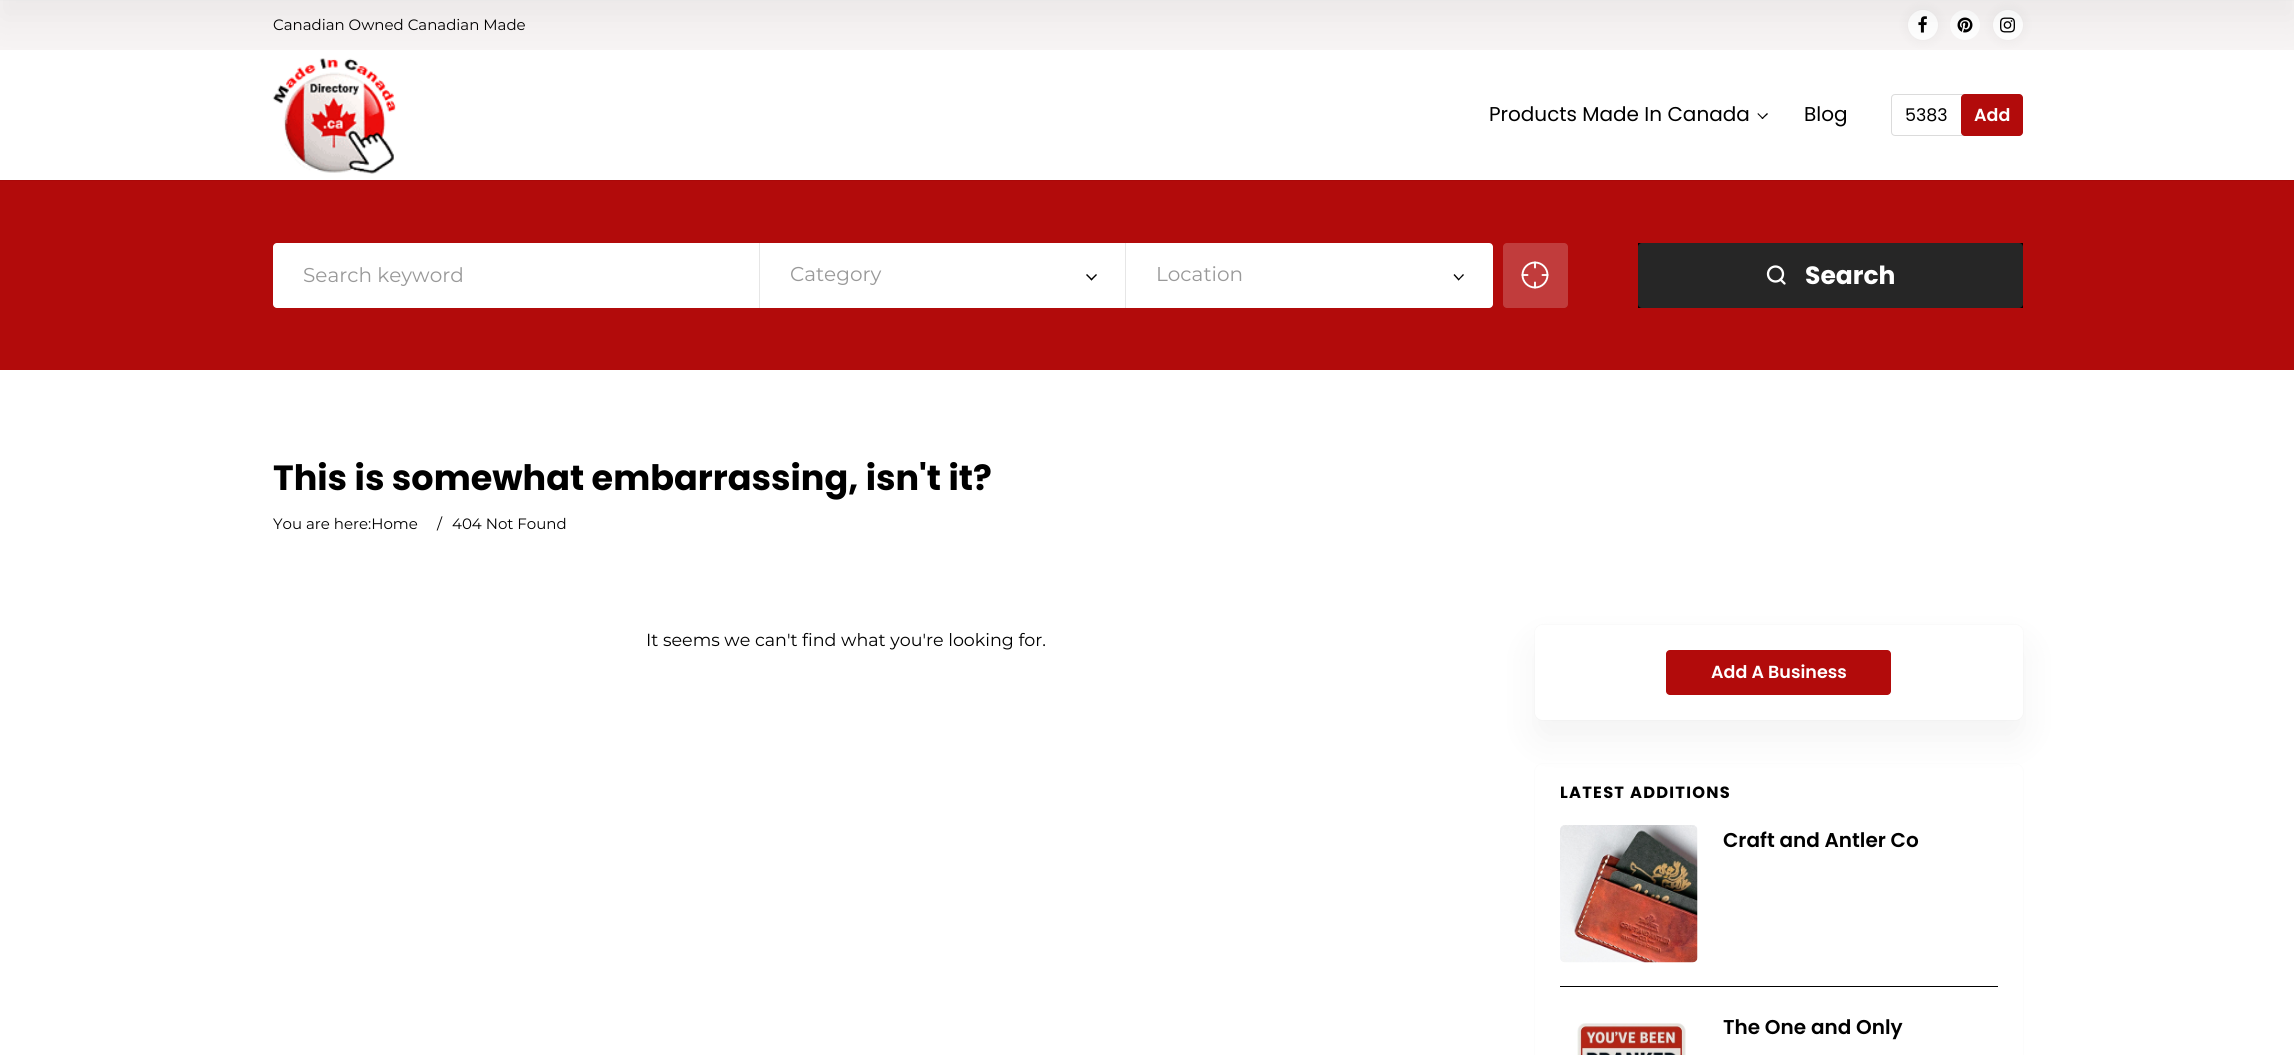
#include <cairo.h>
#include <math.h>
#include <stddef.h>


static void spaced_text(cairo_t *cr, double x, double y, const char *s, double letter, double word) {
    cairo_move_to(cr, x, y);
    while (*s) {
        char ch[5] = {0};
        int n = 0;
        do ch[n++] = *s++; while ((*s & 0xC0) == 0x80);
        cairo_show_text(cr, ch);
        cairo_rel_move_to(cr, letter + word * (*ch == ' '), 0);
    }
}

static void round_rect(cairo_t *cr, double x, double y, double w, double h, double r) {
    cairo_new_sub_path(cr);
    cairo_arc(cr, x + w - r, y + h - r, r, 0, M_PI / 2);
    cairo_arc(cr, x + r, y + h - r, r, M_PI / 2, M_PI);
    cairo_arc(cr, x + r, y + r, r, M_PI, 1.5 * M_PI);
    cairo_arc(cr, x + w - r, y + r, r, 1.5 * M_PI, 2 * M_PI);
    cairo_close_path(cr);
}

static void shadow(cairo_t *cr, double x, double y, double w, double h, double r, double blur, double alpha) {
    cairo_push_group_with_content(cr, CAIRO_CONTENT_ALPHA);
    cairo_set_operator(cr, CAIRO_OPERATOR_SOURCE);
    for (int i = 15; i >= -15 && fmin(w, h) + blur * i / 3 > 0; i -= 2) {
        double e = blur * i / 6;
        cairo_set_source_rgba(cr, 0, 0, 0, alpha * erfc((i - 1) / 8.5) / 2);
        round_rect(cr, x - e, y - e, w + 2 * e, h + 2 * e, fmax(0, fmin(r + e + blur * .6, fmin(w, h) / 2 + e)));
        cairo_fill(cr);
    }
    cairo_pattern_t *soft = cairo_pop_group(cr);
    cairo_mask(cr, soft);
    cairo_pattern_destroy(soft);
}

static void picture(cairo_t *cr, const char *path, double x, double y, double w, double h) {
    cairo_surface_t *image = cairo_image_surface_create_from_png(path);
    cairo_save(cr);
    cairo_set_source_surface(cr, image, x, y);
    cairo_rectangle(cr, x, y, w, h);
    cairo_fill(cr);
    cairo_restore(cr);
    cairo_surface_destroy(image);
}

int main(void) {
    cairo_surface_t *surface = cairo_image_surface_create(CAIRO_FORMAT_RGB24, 2294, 1055);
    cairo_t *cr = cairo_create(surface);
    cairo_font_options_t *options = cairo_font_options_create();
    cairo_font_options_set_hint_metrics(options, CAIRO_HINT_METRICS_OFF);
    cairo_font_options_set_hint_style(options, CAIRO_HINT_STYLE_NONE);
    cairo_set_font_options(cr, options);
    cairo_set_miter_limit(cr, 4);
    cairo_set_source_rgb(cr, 1, 1, 1);
    cairo_paint(cr);
    cairo_set_source_rgb(cr, 0.965, 0.957, 0.957);
    cairo_rectangle(cr, 0, 1, 2294, 49);
    cairo_fill(cr);
    cairo_set_source_rgb(cr, 0, 0, 0);
    shadow(cr, 1908, 10, 30, 30, 15, 6, 0.05);
    cairo_set_source_rgb(cr, 1, 1, 1);
    cairo_arc(cr, 1965, 25, 15, 0, 2 * M_PI);
    cairo_fill(cr);
    cairo_set_source_rgb(cr, 0, 0, 0);
    shadow(cr, 1993, 10, 30, 30, 15, 6, 0.05);
    cairo_set_source_rgb(cr, 0.957, 0.949, 0.949);
    cairo_rectangle(cr, 0, 0, 2294, 1);
    cairo_fill(cr);
    cairo_set_source_rgb(cr, 1, 1, 1);
    cairo_arc(cr, 1923, 25, 15, 0, 2 * M_PI);
    cairo_fill(cr);
    picture(cr, "img1.png", 1918, 16, 9, 17);
    picture(cr, "img2.png", 1957, 17, 16, 16);
    cairo_arc(cr, 2008, 25, 15, 0, 2 * M_PI);
    cairo_fill(cr);
    picture(cr, "img3.png", 2000, 17, 15, 16);
    picture(cr, "img4.png", 272, 58, 124, 116);
    cairo_set_source_rgb(cr, 0, 0, 0);
    shadow(cr, 0, -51, 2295, 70, 0, 19, 0.05);
    cairo_set_source_rgb(cr, 0.663, 0.039, 0.039);
    cairo_rectangle(cr, 0, 180, 2294, 1);
    cairo_fill(cr);
    cairo_select_font_face(cr, "Montserrat", CAIRO_FONT_SLANT_NORMAL, CAIRO_FONT_WEIGHT_NORMAL);
    cairo_set_font_size(cr, 15);
    cairo_set_source_rgb(cr, 0, 0, 0);
    cairo_move_to(cr, 273, 30);
    cairo_show_text(cr, "Canadian Owned Canadian Made");
    cairo_select_font_face(cr, "Poppins", CAIRO_FONT_SLANT_NORMAL, CAIRO_FONT_WEIGHT_NORMAL);
    cairo_set_font_size(cr, 20);
    cairo_move_to(cr, 1489, 121);
    cairo_show_text(cr, "Products Made In Canada");
    cairo_new_path(cr);
    cairo_move_to(cr, 1767, 113);
    cairo_line_to(cr, 1768, 114);
    cairo_line_to(cr, 1762.5, 119);
    cairo_line_to(cr, 1761.5, 118.5);
    cairo_close_path(cr);
    cairo_fill(cr);
    cairo_new_path(cr);
    cairo_move_to(cr, 1758, 113);
    cairo_line_to(cr, 1763.5, 118.5);
    cairo_line_to(cr, 1762.5, 119);
    cairo_line_to(cr, 1757.5, 114);
    cairo_close_path(cr);
    cairo_fill(cr);
    cairo_move_to(cr, 1804, 121);
    cairo_show_text(cr, "Blog");
    round_rect(cr, 1891.5, 94.5, 131, 41, 3.5);
    cairo_set_source_rgb(cr, 0.859, 0.859, 0.859);
    cairo_set_line_width(cr, 1);
    cairo_stroke(cr);
    cairo_set_font_size(cr, 17.5);
    cairo_set_source_rgb(cr, 0, 0, 0);
    cairo_move_to(cr, 1905, 121);
    cairo_show_text(cr, "5383");
    cairo_set_source_rgb(cr, 0.698, 0.043, 0.043);
    round_rect(cr, 1961, 94, 62, 42, 4);
    cairo_fill(cr);
    cairo_select_font_face(cr, "Poppins SemiBold", CAIRO_FONT_SLANT_NORMAL, CAIRO_FONT_WEIGHT_NORMAL);
    cairo_set_source_rgb(cr, 1, 1, 1);
    cairo_move_to(cr, 1974, 121);
    cairo_show_text(cr, "Add");
    cairo_set_source_rgb(cr, 0.698, 0.043, 0.043);
    cairo_rectangle(cr, 0, 181, 2294, 189);
    cairo_fill(cr);
    cairo_set_source_rgb(cr, 1, 1, 1);
    round_rect(cr, 273, 243, 1220, 65, 4);
    cairo_fill(cr);
    cairo_set_source_rgb(cr, 0.902, 0.902, 0.902);
    cairo_rectangle(cr, 759, 243, 1, 65);
    cairo_fill(cr);
    cairo_select_font_face(cr, "Montserrat", CAIRO_FONT_SLANT_NORMAL, CAIRO_FONT_WEIGHT_NORMAL);
    cairo_set_font_size(cr, 20);
    cairo_set_source_rgb(cr, 0.6, 0.6, 0.6);
    cairo_move_to(cr, 303, 282);
    cairo_show_text(cr, "Search keyword");
    cairo_set_source_rgb(cr, 0.902, 0.902, 0.902);
    cairo_rectangle(cr, 1125, 243, 1, 65);
    cairo_fill(cr);
    cairo_set_source_rgb(cr, 0.6, 0.6, 0.6);
    cairo_move_to(cr, 790, 281);
    cairo_show_text(cr, "Category");
    cairo_set_source_rgb(cr, 0, 0, 0);
    cairo_new_path(cr);
    cairo_move_to(cr, 1096, 274);
    cairo_line_to(cr, 1097, 275);
    cairo_line_to(cr, 1091.5, 280.5);
    cairo_line_to(cr, 1090.5, 279.5);
    cairo_close_path(cr);
    cairo_fill(cr);
    cairo_new_path(cr);
    cairo_move_to(cr, 1087, 274);
    cairo_line_to(cr, 1092.5, 279.5);
    cairo_line_to(cr, 1091.5, 280.5);
    cairo_line_to(cr, 1086, 275);
    cairo_close_path(cr);
    cairo_fill(cr);
    cairo_set_source_rgb(cr, 0.6, 0.6, 0.6);
    cairo_move_to(cr, 1156, 281);
    cairo_show_text(cr, "Location");
    cairo_set_source_rgb(cr, 0, 0, 0);
    cairo_new_path(cr);
    cairo_move_to(cr, 1463, 274);
    cairo_line_to(cr, 1464, 275);
    cairo_line_to(cr, 1458.5, 280.5);
    cairo_line_to(cr, 1458, 279.5);
    cairo_close_path(cr);
    cairo_fill(cr);
    cairo_new_path(cr);
    cairo_move_to(cr, 1454.5, 274);
    cairo_line_to(cr, 1459.5, 279.5);
    cairo_line_to(cr, 1458.5, 280.5);
    cairo_line_to(cr, 1453.5, 275);
    cairo_close_path(cr);
    cairo_fill(cr);
    cairo_set_source_rgb(cr, 0.757, 0.235, 0.235);
    round_rect(cr, 1503, 243, 65, 65, 4);
    cairo_fill(cr);
    picture(cr, "img5.png", 1521, 261, 28, 28);
    cairo_set_source_rgb(cr, 0, 0, 0);
    cairo_rectangle(cr, 1638, 243, 385, 65);
    cairo_fill(cr);
    cairo_set_source_rgb(cr, 0.149, 0.149, 0.149);
    round_rect(cr, 1638, 243, 385, 65, 4);
    cairo_fill(cr);
    cairo_arc(cr, 1775.5, 274, 7.5, 0, 2 * M_PI);
    cairo_set_source_rgb(cr, 1, 1, 1);
    cairo_set_line_width(cr, 2.3);
    cairo_stroke(cr);
    cairo_new_path(cr);
    cairo_move_to(cr, 1784.5, 283.5);
    cairo_line_to(cr, 1780.5, 279.5);
    cairo_set_line_cap(cr, CAIRO_LINE_CAP_ROUND);
    cairo_set_line_join(cr, CAIRO_LINE_JOIN_ROUND);
    cairo_stroke(cr);
    cairo_select_font_face(cr, "Poppins", CAIRO_FONT_SLANT_NORMAL, CAIRO_FONT_WEIGHT_BOLD);
    cairo_set_font_size(cr, 25);
    cairo_move_to(cr, 1805, 284);
    cairo_show_text(cr, "Search");
    cairo_set_font_size(cr, 35);
    cairo_set_source_rgb(cr, 0, 0, 0);
    cairo_move_to(cr, 273, 490);
    cairo_show_text(cr, "This is somewhat embarrassing, isn't it?");
    cairo_select_font_face(cr, "Montserrat", CAIRO_FONT_SLANT_NORMAL, CAIRO_FONT_WEIGHT_NORMAL);
    cairo_set_font_size(cr, 15);
    cairo_move_to(cr, 273, 529);
    cairo_show_text(cr, "You are here:Home");
    cairo_move_to(cr, 437, 529);
    cairo_show_text(cr, "/");
    cairo_move_to(cr, 452, 529);
    cairo_show_text(cr, "404 Not Found");
    cairo_set_font_size(cr, 17.5);
    cairo_move_to(cr, 646, 646);
    cairo_show_text(cr, "It seems we can't find what you're looking for.");
    round_rect(cr, 1534.5, 624.5, 489, 96, 8.5);
    cairo_set_source_rgb(cr, 0.988, 0.988, 0.988);
    cairo_set_line_width(cr, 1);
    cairo_set_line_cap(cr, CAIRO_LINE_CAP_BUTT);
    cairo_set_line_join(cr, CAIRO_LINE_JOIN_MITER);
    cairo_stroke(cr);
    cairo_save(cr);
    cairo_set_fill_rule(cr, CAIRO_FILL_RULE_EVEN_ODD);
    cairo_new_path(cr);
    cairo_move_to(cr, 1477, 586);
    cairo_line_to(cr, 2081, 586);
    cairo_line_to(cr, 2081, 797);
    cairo_line_to(cr, 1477, 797);
    cairo_close_path(cr);
    cairo_move_to(cr, 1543, 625);
    cairo_line_to(cr, 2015, 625);
    cairo_curve_to(cr, 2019.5, 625, 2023, 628.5, 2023, 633);
    cairo_line_to(cr, 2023, 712);
    cairo_curve_to(cr, 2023, 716.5, 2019.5, 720, 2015, 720);
    cairo_line_to(cr, 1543, 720);
    cairo_curve_to(cr, 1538.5, 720, 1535, 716.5, 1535, 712);
    cairo_line_to(cr, 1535, 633);
    cairo_curve_to(cr, 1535, 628.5, 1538.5, 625, 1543, 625);
    cairo_close_path(cr);
    cairo_clip(cr);
    cairo_set_source_rgb(cr, 0, 0, 0);
    shadow(cr, 1535, 644, 488, 95, 8, 19, 0.05);
    cairo_restore(cr);
    cairo_set_source_rgb(cr, 0.698, 0.043, 0.043);
    round_rect(cr, 1666, 650, 225, 45, 4);
    cairo_fill(cr);
    cairo_select_font_face(cr, "Poppins SemiBold", CAIRO_FONT_SLANT_NORMAL, CAIRO_FONT_WEIGHT_NORMAL);
    cairo_set_source_rgb(cr, 1, 1, 1);
    cairo_move_to(cr, 1711, 678);
    cairo_show_text(cr, "Add A Business");
    round_rect(cr, 1534.5, 763.5, 489, 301, 8.5);
    cairo_set_source_rgb(cr, 0.988, 0.988, 0.988);
    cairo_stroke(cr);
    cairo_select_font_face(cr, "Poppins", CAIRO_FONT_SLANT_NORMAL, CAIRO_FONT_WEIGHT_BOLD);
    cairo_set_font_size(cr, 16.25);
    cairo_set_source_rgb(cr, 0, 0, 0);
    spaced_text(cr, 1560, 798, "LATEST ADDITIONS", 1.25, 0);
    cairo_rectangle(cr, 1560, 986, 438, 1);
    cairo_fill(cr);
    picture(cr, "img6.png", 1560, 825, 138, 138);
    cairo_select_font_face(cr, "Poppins SemiBold", CAIRO_FONT_SLANT_NORMAL, CAIRO_FONT_WEIGHT_NORMAL);
    cairo_set_font_size(cr, 20);
    cairo_move_to(cr, 1723, 847);
    cairo_show_text(cr, "Craft and Antler Co");
    picture(cr, "img7.png", 1577, 1023, 109, 32);
    cairo_move_to(cr, 1723, 1034);
    cairo_show_text(cr, "The One and Only");
    cairo_surface_write_to_png(surface, "page.png");
    cairo_font_options_destroy(options);
    cairo_destroy(cr);
    cairo_surface_destroy(surface);
    return 0;
}
